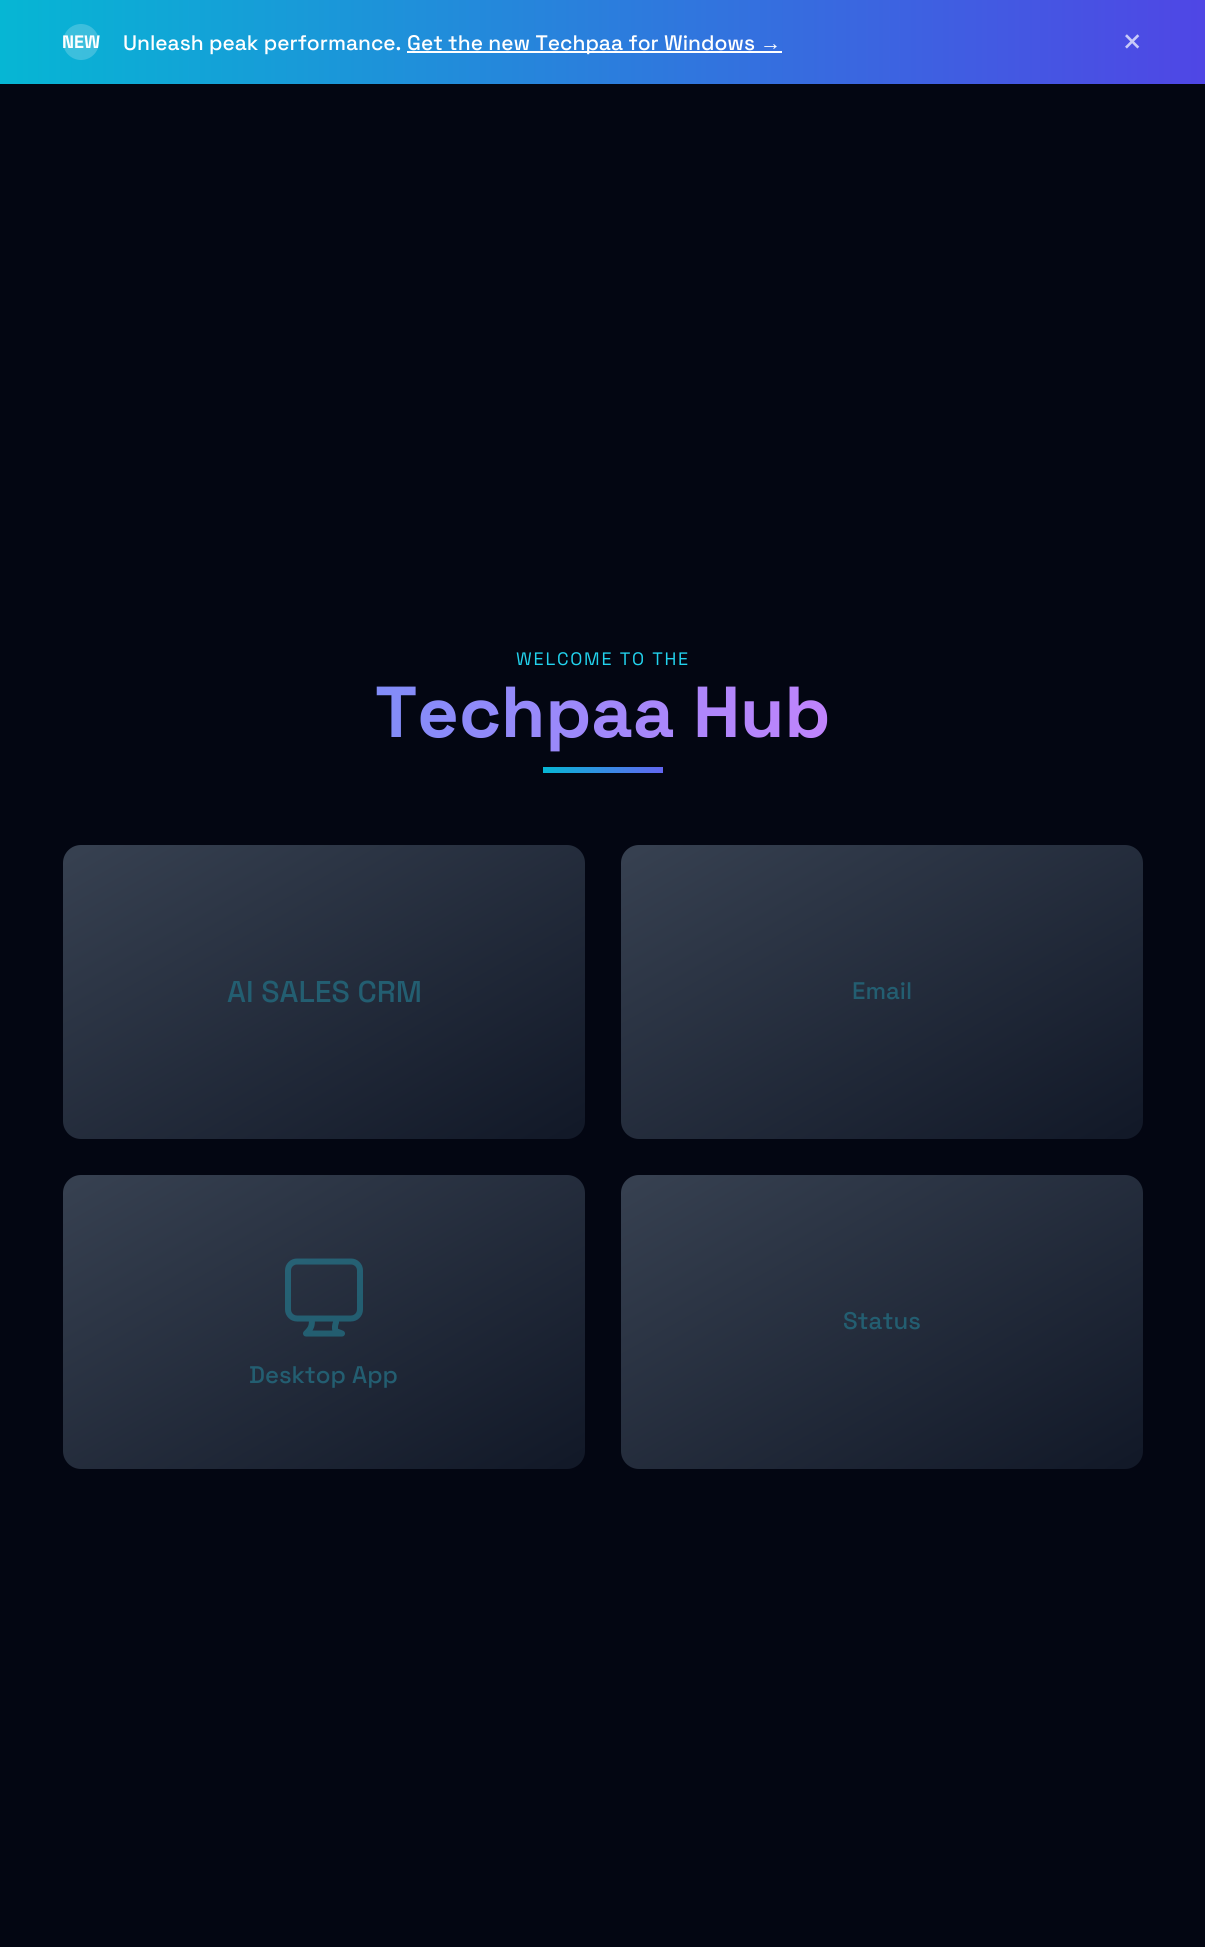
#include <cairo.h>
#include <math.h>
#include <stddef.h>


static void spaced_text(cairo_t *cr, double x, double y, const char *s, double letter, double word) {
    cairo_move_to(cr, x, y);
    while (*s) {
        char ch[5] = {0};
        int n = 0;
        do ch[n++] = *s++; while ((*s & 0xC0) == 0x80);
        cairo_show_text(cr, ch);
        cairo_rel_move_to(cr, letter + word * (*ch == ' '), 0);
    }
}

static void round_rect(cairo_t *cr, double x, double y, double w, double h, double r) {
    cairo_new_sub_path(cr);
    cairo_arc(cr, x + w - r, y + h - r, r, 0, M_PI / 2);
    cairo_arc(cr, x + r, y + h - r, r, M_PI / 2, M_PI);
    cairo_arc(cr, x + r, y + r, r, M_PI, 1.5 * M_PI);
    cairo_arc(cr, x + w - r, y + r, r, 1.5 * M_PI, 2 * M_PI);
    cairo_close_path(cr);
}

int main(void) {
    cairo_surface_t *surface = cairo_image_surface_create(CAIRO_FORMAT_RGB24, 1205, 1947);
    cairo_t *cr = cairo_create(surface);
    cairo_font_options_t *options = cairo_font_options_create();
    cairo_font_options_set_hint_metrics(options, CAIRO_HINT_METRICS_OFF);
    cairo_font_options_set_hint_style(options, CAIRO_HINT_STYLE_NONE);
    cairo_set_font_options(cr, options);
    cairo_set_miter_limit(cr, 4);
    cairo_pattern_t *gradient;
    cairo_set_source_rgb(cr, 0.012, 0.027, 0.071);
    cairo_paint(cr);
    gradient = cairo_pattern_create_linear(0, 42, 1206, 42);
    cairo_pattern_add_color_stop_rgba(gradient, 0, 0.024, 0.714, 0.831, 1);
    cairo_pattern_add_color_stop_rgba(gradient, 1, 0.31, 0.275, 0.898, 1);
    cairo_set_source(cr, gradient);
    cairo_pattern_destroy(gradient);
    cairo_rectangle(cr, 0, 0, 1205, 84);
    cairo_fill(cr);
    cairo_set_source_rgba(cr, 1, 1, 1, 0.2);
    cairo_arc(cr, 81, 42, 18, 0, 2 * M_PI);
    cairo_fill(cr);
    cairo_select_font_face(cr, "Space Grotesk", CAIRO_FONT_SLANT_NORMAL, CAIRO_FONT_WEIGHT_BOLD);
    cairo_set_font_size(cr, 18);
    cairo_set_source_rgb(cr, 1, 1, 1);
    cairo_move_to(cr, 62, 48);
    cairo_show_text(cr, "NEW");
    cairo_select_font_face(cr, "Space Grotesk Medium", CAIRO_FONT_SLANT_NORMAL, CAIRO_FONT_WEIGHT_NORMAL);
    cairo_set_font_size(cr, 21);
    cairo_move_to(cr, 123, 50);
    cairo_show_text(cr, "Unleash peak performance.");
    cairo_rectangle(cr, 407, 51, 375, 2);
    cairo_fill(cr);
    cairo_move_to(cr, 407, 50);
    cairo_show_text(cr, "Get the new Techpaa for Windows");
    cairo_select_font_face(cr, "Liberation Sans", CAIRO_FONT_SLANT_NORMAL, CAIRO_FONT_WEIGHT_NORMAL);
    cairo_move_to(cr, 760, 50);
    cairo_show_text(cr, "→");
    cairo_select_font_face(cr, "Space Grotesk", CAIRO_FONT_SLANT_NORMAL, CAIRO_FONT_WEIGHT_NORMAL);
    cairo_set_font_size(cr, 36);
    cairo_set_source_rgb(cr, 0.788, 0.792, 0.969);
    cairo_move_to(cr, 1121, 54);
    cairo_show_text(cr, "×");
    cairo_set_font_size(cr, 18);
    cairo_set_source_rgb(cr, 0.133, 0.827, 0.933);
    spaced_text(cr, 516, 665, "WELCOME TO THE", 1.75, 0);
    cairo_select_font_face(cr, "Space Grotesk", CAIRO_FONT_SLANT_NORMAL, CAIRO_FONT_WEIGHT_BOLD);
    cairo_set_font_size(cr, 72);
    gradient = cairo_pattern_create_linear(375, 713, 831, 713);
    cairo_pattern_add_color_stop_rgba(gradient, 0, 0.506, 0.549, 0.973, 1);
    cairo_pattern_add_color_stop_rgba(gradient, 1, 0.753, 0.518, 0.988, 1);
    cairo_set_source(cr, gradient);
    cairo_pattern_destroy(gradient);
    cairo_move_to(cr, 375, 737);
    cairo_show_text(cr, "Techpaa Hub");
    gradient = cairo_pattern_create_linear(543, 770, 663, 770);
    cairo_pattern_add_color_stop_rgba(gradient, 0, 0.024, 0.714, 0.831, 1);
    cairo_pattern_add_color_stop_rgba(gradient, 1, 0.388, 0.4, 0.945, 1);
    cairo_set_source(cr, gradient);
    cairo_pattern_destroy(gradient);
    cairo_rectangle(cr, 543, 767, 120, 6);
    cairo_fill(cr);
    gradient = cairo_pattern_create_linear(198, 768, 450, 1215);
    cairo_pattern_add_color_stop_rgba(gradient, 0, 0.216, 0.255, 0.318, 1);
    cairo_pattern_add_color_stop_rgba(gradient, 1, 0.067, 0.094, 0.153, 1);
    cairo_set_source(cr, gradient);
    cairo_pattern_destroy(gradient);
    round_rect(cr, 63, 845, 522, 294, 18);
    cairo_fill(cr);
    cairo_select_font_face(cr, "Space Grotesk Medium", CAIRO_FONT_SLANT_NORMAL, CAIRO_FONT_WEIGHT_NORMAL);
    cairo_set_font_size(cr, 30);
    cairo_set_source_rgb(cr, 0.137, 0.369, 0.443);
    cairo_move_to(cr, 227, 1002);
    cairo_show_text(cr, "AI SALES CRM");
    gradient = cairo_pattern_create_linear(756, 768, 1008, 1215);
    cairo_pattern_add_color_stop_rgba(gradient, 0, 0.216, 0.255, 0.318, 1);
    cairo_pattern_add_color_stop_rgba(gradient, 1, 0.067, 0.094, 0.153, 1);
    cairo_set_source(cr, gradient);
    cairo_pattern_destroy(gradient);
    round_rect(cr, 621, 845, 522, 294, 18);
    cairo_fill(cr);
    cairo_set_font_size(cr, 24);
    cairo_set_source_rgb(cr, 0.137, 0.369, 0.443);
    cairo_move_to(cr, 852, 999);
    cairo_show_text(cr, "Email");
    gradient = cairo_pattern_create_linear(756, 1098, 1008, 1545);
    cairo_pattern_add_color_stop_rgba(gradient, 0, 0.216, 0.255, 0.318, 1);
    cairo_pattern_add_color_stop_rgba(gradient, 1, 0.067, 0.094, 0.153, 1);
    cairo_set_source(cr, gradient);
    cairo_pattern_destroy(gradient);
    round_rect(cr, 621, 1175, 522, 294, 18);
    cairo_fill(cr);
    cairo_set_source_rgb(cr, 0.137, 0.369, 0.443);
    cairo_move_to(cr, 843, 1329);
    cairo_show_text(cr, "Status");
    gradient = cairo_pattern_create_linear(198, 1098, 450, 1545);
    cairo_pattern_add_color_stop_rgba(gradient, 0, 0.216, 0.255, 0.318, 1);
    cairo_pattern_add_color_stop_rgba(gradient, 1, 0.067, 0.094, 0.153, 1);
    cairo_set_source(cr, gradient);
    cairo_pattern_destroy(gradient);
    round_rect(cr, 63, 1175, 522, 294, 18);
    cairo_fill(cr);
    cairo_new_path(cr);
    cairo_move_to(cr, 312, 1318.5);
    cairo_curve_to(cr, 312, 1326, 311.5, 1328, 306, 1333.5);
    cairo_line_to(cr, 342, 1333.5);
    cairo_line_to(cr, 335.5, 1331);
    cairo_curve_to(cr, 334.5, 1328, 335, 1325, 336, 1322.5);
    cairo_line_to(cr, 336, 1318.5);
    cairo_move_to(cr, 360, 1270.5);
    cairo_line_to(cr, 360, 1309.5);
    cairo_curve_to(cr, 360, 1314.5, 356, 1318.5, 351, 1318.5);
    cairo_line_to(cr, 297, 1318.5);
    cairo_curve_to(cr, 292, 1318.5, 288, 1314.5, 288, 1309.5);
    cairo_line_to(cr, 288, 1270.5);
    cairo_curve_to(cr, 288, 1265.5, 292, 1261.5, 297, 1261.5);
    cairo_line_to(cr, 351, 1261.5);
    cairo_curve_to(cr, 356, 1261.5, 360, 1265.5, 360, 1270.5);
    cairo_close_path(cr);
    cairo_set_source_rgba(cr, 0.133, 0.827, 0.933, 0.3);
    cairo_set_line_width(cr, 6);
    cairo_set_line_cap(cr, CAIRO_LINE_CAP_ROUND);
    cairo_set_line_join(cr, CAIRO_LINE_JOIN_ROUND);
    cairo_stroke(cr);
    cairo_set_source_rgb(cr, 0.137, 0.369, 0.443);
    cairo_move_to(cr, 249, 1383);
    cairo_show_text(cr, "Desktop App");
    cairo_surface_write_to_png(surface, "page.png");
    cairo_font_options_destroy(options);
    cairo_destroy(cr);
    cairo_surface_destroy(surface);
    return 0;
}
